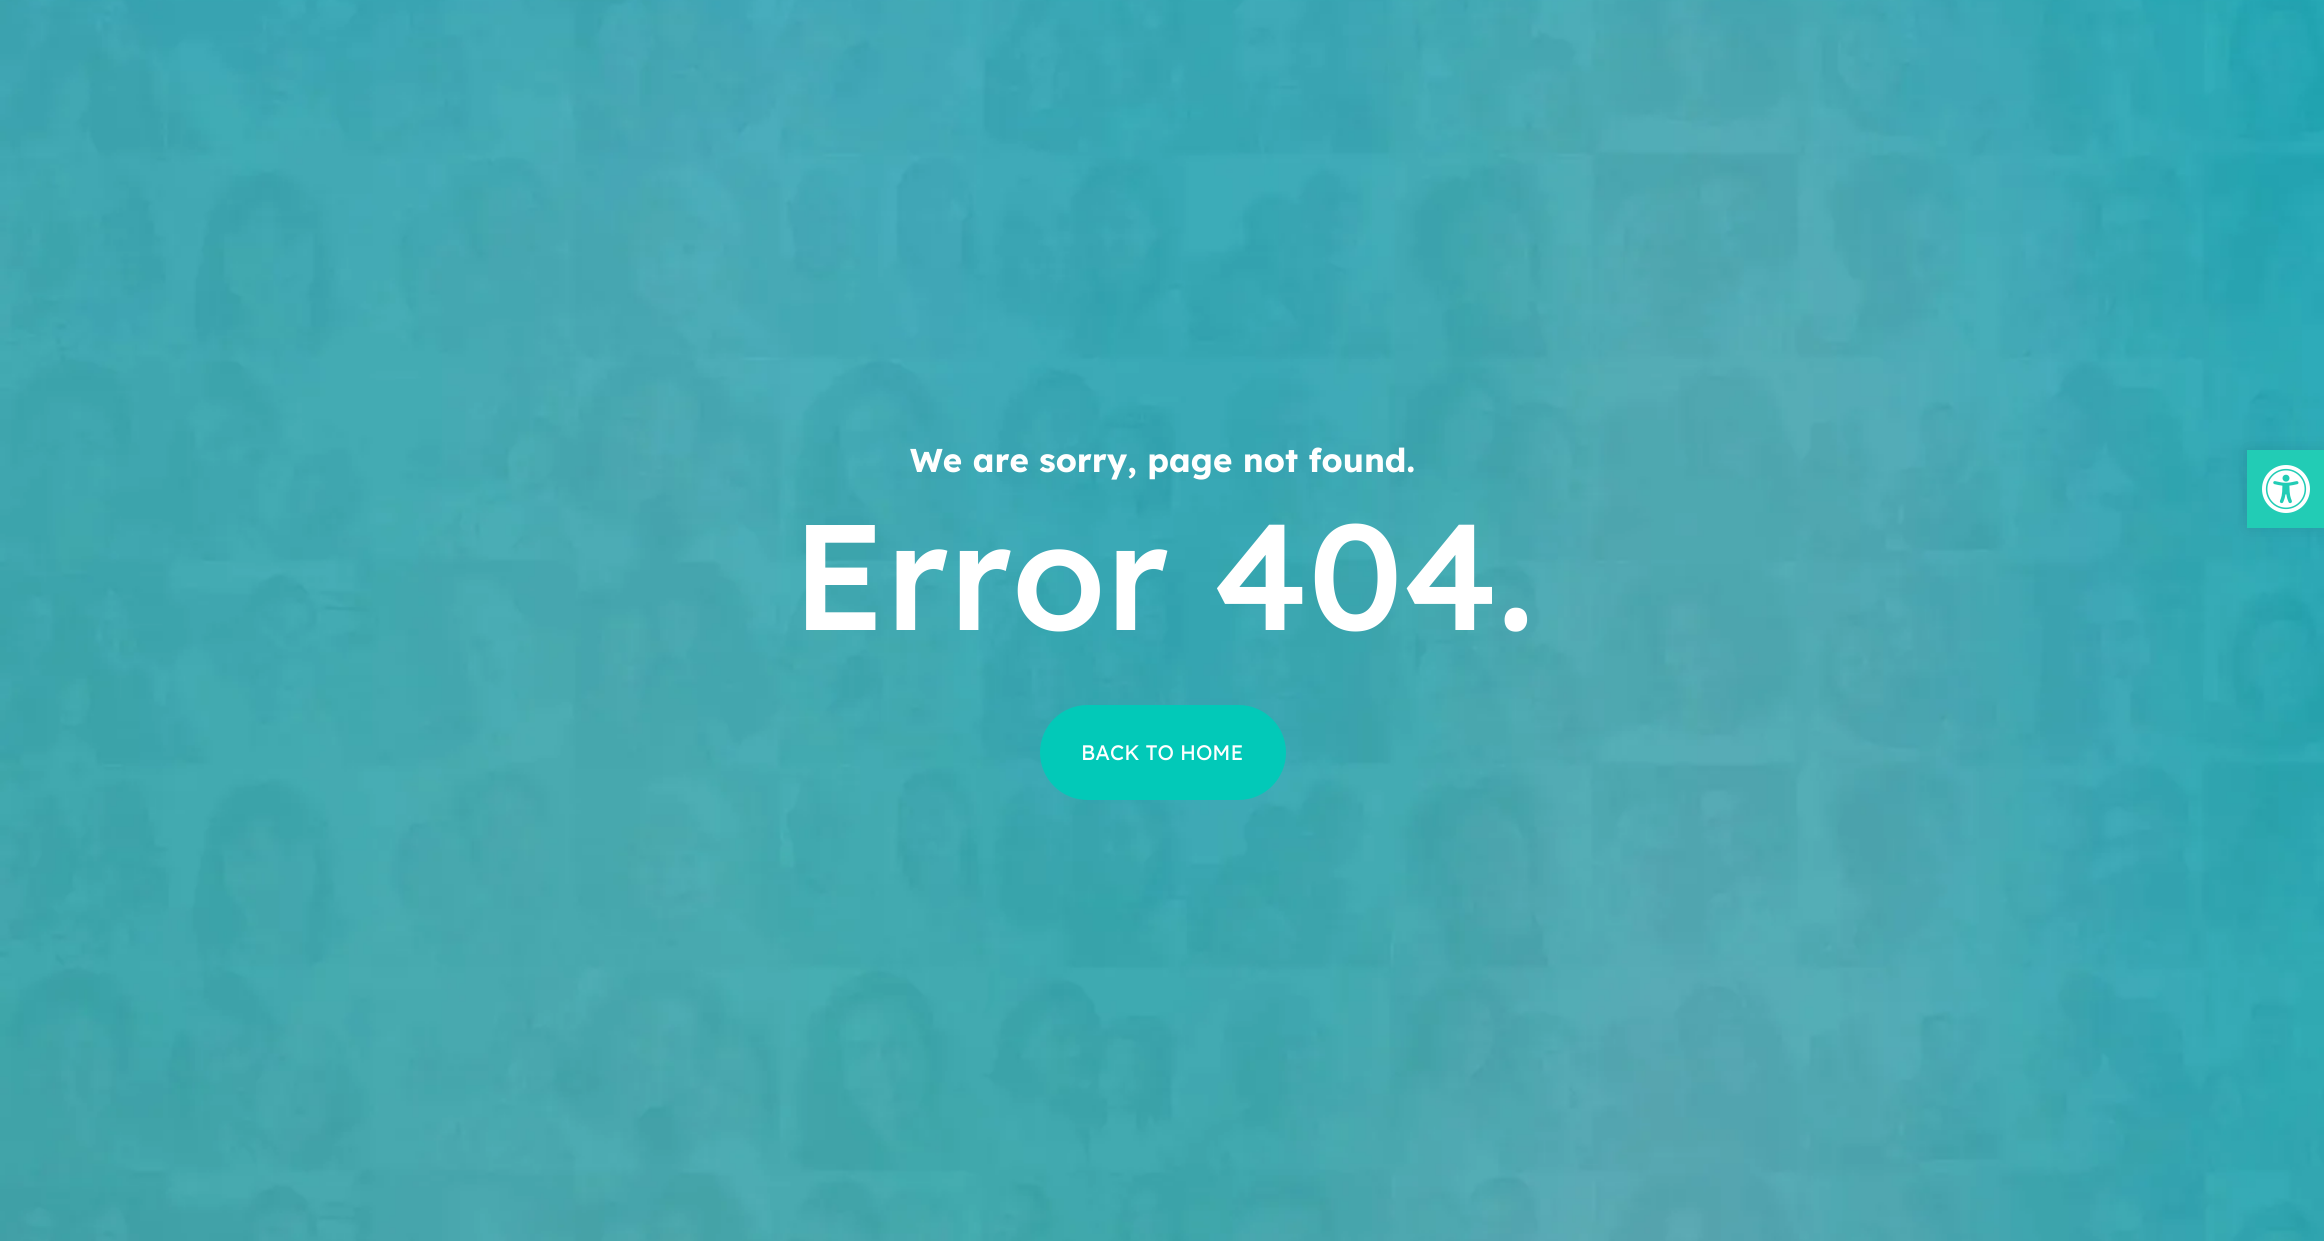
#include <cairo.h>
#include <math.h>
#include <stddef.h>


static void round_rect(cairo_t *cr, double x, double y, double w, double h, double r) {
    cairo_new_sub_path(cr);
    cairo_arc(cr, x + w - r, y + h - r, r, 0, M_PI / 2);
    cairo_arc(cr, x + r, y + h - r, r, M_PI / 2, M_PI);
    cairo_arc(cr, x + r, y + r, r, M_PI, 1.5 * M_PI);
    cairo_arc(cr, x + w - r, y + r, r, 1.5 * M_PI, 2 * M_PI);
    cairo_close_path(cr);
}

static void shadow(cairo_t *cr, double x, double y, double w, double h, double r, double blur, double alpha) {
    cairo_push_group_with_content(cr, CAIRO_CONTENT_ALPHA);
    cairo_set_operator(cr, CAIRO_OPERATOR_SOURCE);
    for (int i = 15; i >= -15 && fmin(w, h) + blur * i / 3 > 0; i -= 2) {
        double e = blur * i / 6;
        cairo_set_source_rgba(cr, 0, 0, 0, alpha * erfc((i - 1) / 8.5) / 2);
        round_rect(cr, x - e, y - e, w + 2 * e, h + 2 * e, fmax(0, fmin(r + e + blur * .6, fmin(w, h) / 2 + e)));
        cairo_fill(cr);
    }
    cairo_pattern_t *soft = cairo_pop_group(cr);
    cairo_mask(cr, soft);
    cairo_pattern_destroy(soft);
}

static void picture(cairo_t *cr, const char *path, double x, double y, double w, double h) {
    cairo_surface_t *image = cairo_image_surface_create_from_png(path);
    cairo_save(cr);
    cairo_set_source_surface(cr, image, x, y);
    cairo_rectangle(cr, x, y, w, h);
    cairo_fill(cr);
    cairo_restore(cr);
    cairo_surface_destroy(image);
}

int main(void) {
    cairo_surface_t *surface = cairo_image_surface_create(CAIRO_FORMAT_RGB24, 2324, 1241);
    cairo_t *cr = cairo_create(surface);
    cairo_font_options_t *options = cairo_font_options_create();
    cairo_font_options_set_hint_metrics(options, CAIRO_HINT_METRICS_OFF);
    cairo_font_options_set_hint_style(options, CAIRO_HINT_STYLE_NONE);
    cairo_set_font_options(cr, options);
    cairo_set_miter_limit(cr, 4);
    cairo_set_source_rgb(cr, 1, 1, 1);
    cairo_paint(cr);
    picture(cr, "img1.png", 0, 0, 2324, 1241);
    cairo_select_font_face(cr, "Lexend Deca", CAIRO_FONT_SLANT_NORMAL, CAIRO_FONT_WEIGHT_BOLD);
    cairo_set_font_size(cr, 33);
    cairo_set_source_rgb(cr, 1, 1, 1);
    cairo_move_to(cr, 910, 472);
    cairo_show_text(cr, "We are sorry, page not found.");
    cairo_select_font_face(cr, "Lexend Deca Medium", CAIRO_FONT_SLANT_NORMAL, CAIRO_FONT_WEIGHT_NORMAL);
    cairo_set_font_size(cr, 150);
    cairo_move_to(cr, 792, 630);
    cairo_show_text(cr, "Error 404.");
    cairo_set_source_rgb(cr, 0.008, 0.788, 0.722);
    round_rect(cr, 1040, 705, 246, 95, 47.5);
    cairo_fill(cr);
    cairo_select_font_face(cr, "Lexend Deca", CAIRO_FONT_SLANT_NORMAL, CAIRO_FONT_WEIGHT_NORMAL);
    cairo_set_font_size(cr, 21);
    cairo_set_source_rgb(cr, 1, 1, 1);
    cairo_move_to(cr, 1081, 760);
    cairo_show_text(cr, "BACK TO HOME");
    cairo_set_source_rgb(cr, 0, 0, 0);
    shadow(cr, 2247, 450, 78, 78, 0, 7.5, 0.1);
    cairo_set_source_rgb(cr, 0.133, 0.8, 0.71);
    cairo_rectangle(cr, 2247, 450, 77, 78);
    cairo_fill(cr);
    picture(cr, "img2.png", 2262, 465, 48, 48);
    cairo_surface_write_to_png(surface, "page.png");
    cairo_font_options_destroy(options);
    cairo_destroy(cr);
    cairo_surface_destroy(surface);
    return 0;
}
